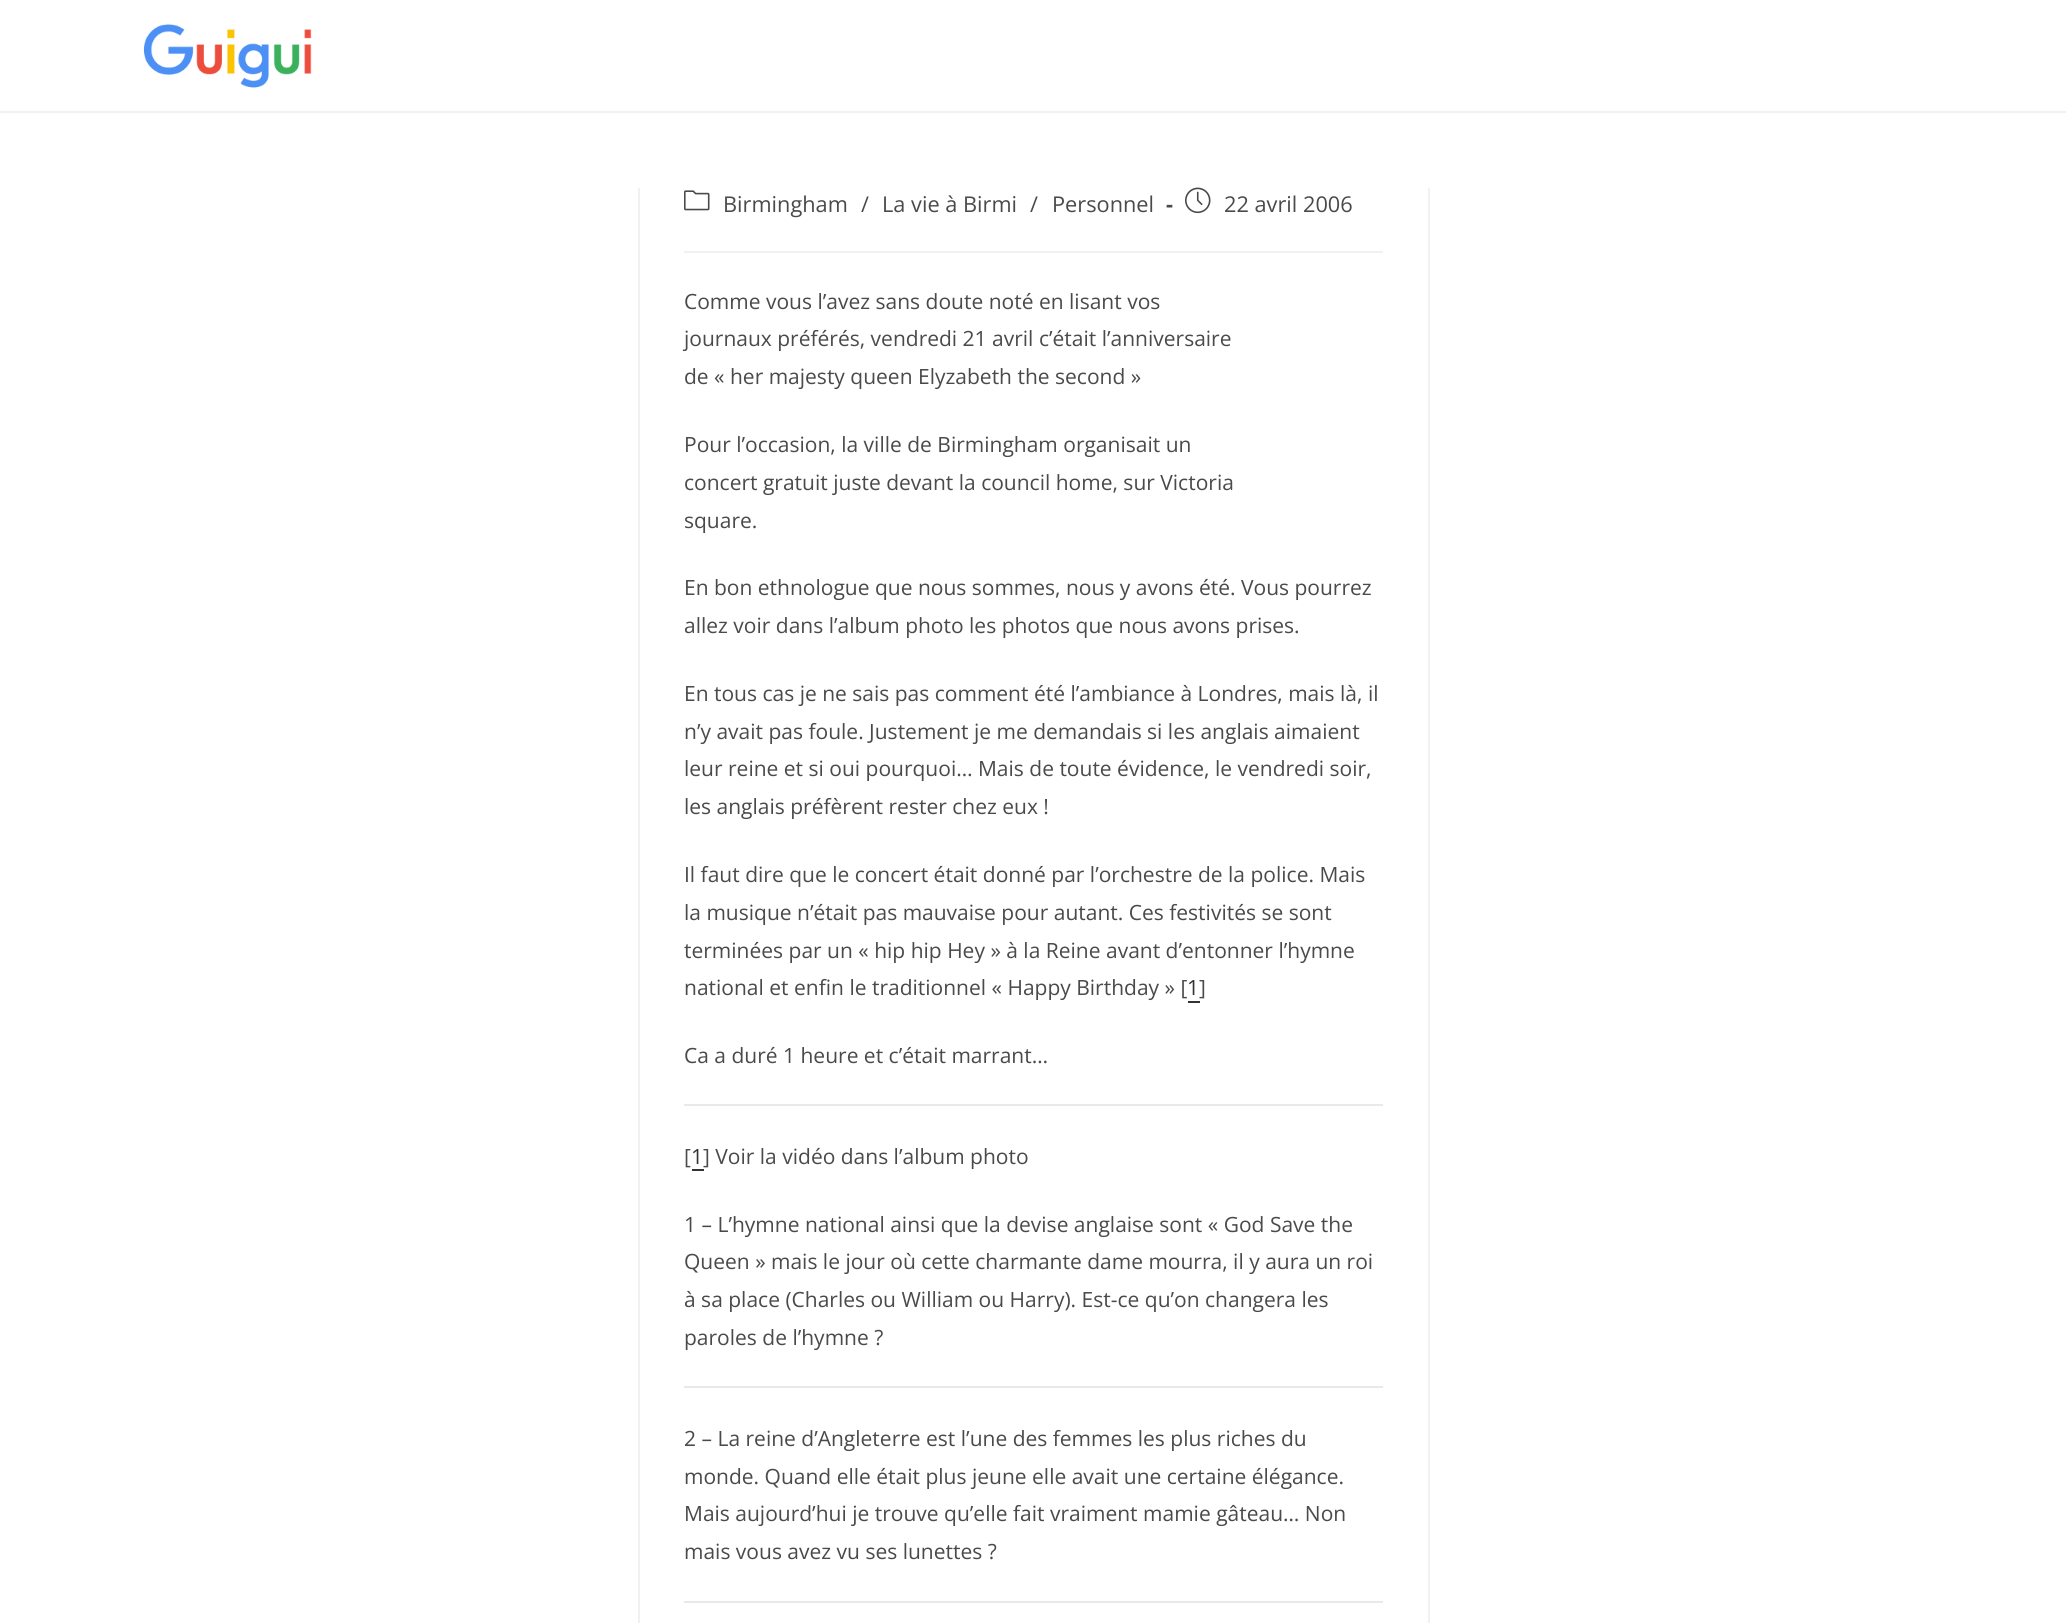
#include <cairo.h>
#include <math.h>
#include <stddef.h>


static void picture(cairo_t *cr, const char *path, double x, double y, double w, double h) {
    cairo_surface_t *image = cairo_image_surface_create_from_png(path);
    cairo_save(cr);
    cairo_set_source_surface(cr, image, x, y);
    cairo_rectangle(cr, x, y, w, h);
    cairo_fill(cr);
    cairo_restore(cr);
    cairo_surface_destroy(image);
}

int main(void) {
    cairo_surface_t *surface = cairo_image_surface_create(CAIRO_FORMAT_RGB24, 2066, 1623);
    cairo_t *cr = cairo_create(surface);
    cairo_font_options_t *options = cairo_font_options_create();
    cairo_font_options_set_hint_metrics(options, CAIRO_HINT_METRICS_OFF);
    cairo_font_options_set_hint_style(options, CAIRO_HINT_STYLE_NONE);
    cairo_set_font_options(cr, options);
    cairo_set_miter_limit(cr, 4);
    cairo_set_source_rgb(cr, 1, 1, 1);
    cairo_paint(cr);
    cairo_set_source_rgb(cr, 0.945, 0.945, 0.945);
    cairo_rectangle(cr, 0, 111, 2066, 2);
    cairo_fill(cr);
    picture(cr, "img1.png", 143, 24, 169, 64);
    cairo_rectangle(cr, 1428, 188, 2, 1435);
    cairo_fill(cr);
    cairo_rectangle(cr, 638, 188, 2, 1435);
    cairo_fill(cr);
    cairo_rectangle(cr, 684, 251, 699, 2);
    cairo_fill(cr);
    picture(cr, "img2.png", 684, 190, 26, 21);
    cairo_select_font_face(cr, "Open Sans", CAIRO_FONT_SLANT_NORMAL, CAIRO_FONT_WEIGHT_NORMAL);
    cairo_set_font_size(cr, 21.75);
    cairo_set_source_rgb(cr, 0.29, 0.29, 0.29);
    cairo_move_to(cr, 723, 212);
    cairo_show_text(cr, "Birmingham");
    cairo_move_to(cr, 861, 212);
    cairo_show_text(cr, "/");
    cairo_move_to(cr, 882, 212);
    cairo_show_text(cr, "La vie à Birmi");
    cairo_move_to(cr, 1030, 212);
    cairo_show_text(cr, "/");
    cairo_move_to(cr, 1052, 212);
    cairo_show_text(cr, "Personnel");
    cairo_select_font_face(cr, "Open Sans", CAIRO_FONT_SLANT_NORMAL, CAIRO_FONT_WEIGHT_BOLD);
    cairo_move_to(cr, 1166, 212);
    cairo_show_text(cr, "-");
    picture(cr, "img3.png", 1185, 187, 26, 27);
    cairo_select_font_face(cr, "Open Sans", CAIRO_FONT_SLANT_NORMAL, CAIRO_FONT_WEIGHT_NORMAL);
    cairo_move_to(cr, 1224, 212);
    cairo_show_text(cr, "22 avril 2006");
    cairo_set_font_size(cr, 21);
    cairo_move_to(cr, 684, 309);
    cairo_show_text(cr, "Comme vous l’avez sans doute noté en lisant vos");
    cairo_move_to(cr, 684, 346);
    cairo_show_text(cr, "journaux préférés, vendredi 21 avril c’était l’anniversaire");
    cairo_move_to(cr, 684, 384);
    cairo_show_text(cr, "de « her majesty queen Elyzabeth the second »");
    cairo_move_to(cr, 684, 452);
    cairo_show_text(cr, "Pour l’occasion, la ville de Birmingham organisait un");
    cairo_move_to(cr, 684, 490);
    cairo_show_text(cr, "concert gratuit juste devant la council home, sur Victoria");
    cairo_move_to(cr, 684, 528);
    cairo_show_text(cr, "square.");
    cairo_move_to(cr, 684, 595);
    cairo_show_text(cr, "En bon ethnologue que nous sommes, nous y avons été. Vous pourrez");
    cairo_move_to(cr, 684, 633);
    cairo_show_text(cr, "allez voir dans l’album photo les photos que nous avons prises.");
    cairo_move_to(cr, 684, 701);
    cairo_show_text(cr, "En tous cas je ne sais pas comment été l’ambiance à Londres, mais là, il");
    cairo_move_to(cr, 684, 739);
    cairo_show_text(cr, "n’y avait pas foule. Justement je me demandais si les anglais aimaient");
    cairo_move_to(cr, 684, 776);
    cairo_show_text(cr, "leur reine et si oui pourquoi… Mais de toute évidence, le vendredi soir,");
    cairo_move_to(cr, 684, 814);
    cairo_show_text(cr, "les anglais préfèrent rester chez eux !");
    cairo_move_to(cr, 684, 882);
    cairo_show_text(cr, "Il faut dire que le concert était donné par l’orchestre de la police. Mais");
    cairo_move_to(cr, 684, 920);
    cairo_show_text(cr, "la musique n’était pas mauvaise pour autant. Ces festivités se sont");
    cairo_move_to(cr, 684, 958);
    cairo_show_text(cr, "terminées par un « hip hip Hey » à la Reine avant d’entonner l’hymne");
    cairo_move_to(cr, 684, 995);
    cairo_show_text(cr, "national et enfin le traditionnel « Happy Birthday » [");
    cairo_set_source_rgb(cr, 0.2, 0.2, 0.2);
    cairo_move_to(cr, 1187, 995);
    cairo_show_text(cr, "1");
    cairo_set_source_rgb(cr, 0.29, 0.29, 0.29);
    cairo_move_to(cr, 1199, 995);
    cairo_show_text(cr, "]");
    cairo_set_source_rgb(cr, 0.2, 0.2, 0.2);
    cairo_rectangle(cr, 1188, 1001, 12, 2);
    cairo_fill(cr);
    cairo_set_source_rgb(cr, 0.29, 0.29, 0.29);
    cairo_move_to(cr, 684, 1063);
    cairo_show_text(cr, "Ca a duré 1 heure et c’était marrant…");
    cairo_set_source_rgb(cr, 0.914, 0.914, 0.914);
    cairo_rectangle(cr, 684, 1104, 699, 2);
    cairo_fill(cr);
    cairo_set_source_rgb(cr, 0.29, 0.29, 0.29);
    cairo_move_to(cr, 684, 1164);
    cairo_show_text(cr, "[");
    cairo_set_source_rgb(cr, 0.2, 0.2, 0.2);
    cairo_rectangle(cr, 692, 1169, 12, 2);
    cairo_fill(cr);
    cairo_move_to(cr, 691, 1164);
    cairo_show_text(cr, "1");
    cairo_set_source_rgb(cr, 0.29, 0.29, 0.29);
    cairo_move_to(cr, 703, 1164);
    cairo_show_text(cr, "] Voir la vidéo dans l’album photo");
    cairo_move_to(cr, 684, 1232);
    cairo_show_text(cr, "1 – L’hymne national ainsi que la devise anglaise sont « God Save the");
    cairo_move_to(cr, 684, 1269);
    cairo_show_text(cr, "Queen » mais le jour où cette charmante dame mourra, il y aura un roi");
    cairo_move_to(cr, 684, 1307);
    cairo_show_text(cr, "à sa place (Charles ou William ou Harry). Est-ce qu’on changera les");
    cairo_move_to(cr, 684, 1345);
    cairo_show_text(cr, "paroles de l’hymne ?");
    cairo_set_source_rgb(cr, 0.914, 0.914, 0.914);
    cairo_rectangle(cr, 684, 1386, 699, 2);
    cairo_fill(cr);
    cairo_set_source_rgb(cr, 0.29, 0.29, 0.29);
    cairo_move_to(cr, 684, 1446);
    cairo_show_text(cr, "2 – La reine d’Angleterre est l’une des femmes les plus riches du");
    cairo_move_to(cr, 684, 1484);
    cairo_show_text(cr, "monde. Quand elle était plus jeune elle avait une certaine élégance.");
    cairo_move_to(cr, 684, 1521);
    cairo_show_text(cr, "Mais aujourd’hui je trouve qu’elle fait vraiment mamie gâteau… Non");
    cairo_move_to(cr, 684, 1559);
    cairo_show_text(cr, "mais vous avez vu ses lunettes ?");
    cairo_set_source_rgb(cr, 0.914, 0.914, 0.914);
    cairo_rectangle(cr, 684, 1601, 699, 2);
    cairo_fill(cr);
    cairo_surface_write_to_png(surface, "page.png");
    cairo_font_options_destroy(options);
    cairo_destroy(cr);
    cairo_surface_destroy(surface);
    return 0;
}
